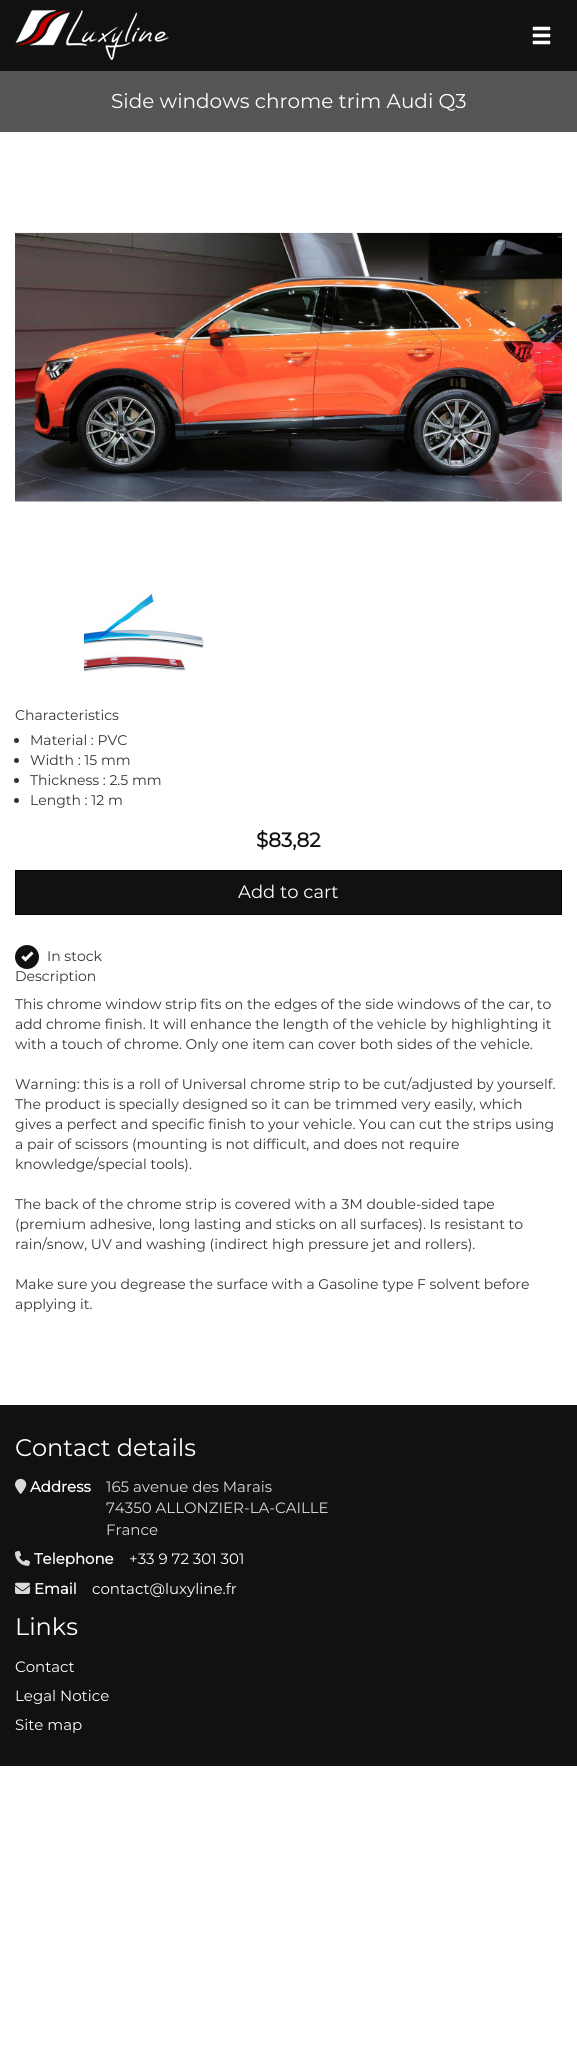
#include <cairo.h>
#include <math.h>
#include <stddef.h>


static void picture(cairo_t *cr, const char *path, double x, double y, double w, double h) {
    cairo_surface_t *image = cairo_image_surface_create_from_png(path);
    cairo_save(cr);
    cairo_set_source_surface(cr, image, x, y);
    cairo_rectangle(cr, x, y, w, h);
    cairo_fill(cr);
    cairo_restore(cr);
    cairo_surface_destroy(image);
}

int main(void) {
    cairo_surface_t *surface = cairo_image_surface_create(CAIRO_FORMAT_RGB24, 577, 2049);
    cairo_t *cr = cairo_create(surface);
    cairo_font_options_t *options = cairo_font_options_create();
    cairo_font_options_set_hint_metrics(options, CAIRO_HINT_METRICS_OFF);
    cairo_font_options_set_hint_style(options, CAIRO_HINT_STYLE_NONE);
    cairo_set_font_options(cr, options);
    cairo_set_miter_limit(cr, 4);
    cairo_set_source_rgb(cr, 1, 1, 1);
    cairo_paint(cr);
    cairo_set_source_rgb(cr, 0.067, 0.067, 0.067);
    cairo_rectangle(cr, 0, 0, 577, 71);
    cairo_fill(cr);
    picture(cr, "img1.png", 15, 10, 154, 50);
    picture(cr, "img2.png", 532, 26, 19, 19);
    cairo_set_source_rgb(cr, 0.333, 0.333, 0.333);
    cairo_rectangle(cr, 0, 71, 577, 61);
    cairo_fill(cr);
    cairo_select_font_face(cr, "Montserrat Thin", CAIRO_FONT_SLANT_NORMAL, CAIRO_FONT_WEIGHT_NORMAL);
    cairo_set_font_size(cr, 20);
    cairo_set_source_rgb(cr, 1, 1, 1);
    cairo_move_to(cr, 111, 108);
    cairo_show_text(cr, "Side windows chrome trim Audi Q3");
    picture(cr, "img3.png", 15, 232, 547, 274);
    picture(cr, "img4.png", 84, 588, 120, 85);
    cairo_set_font_size(cr, 14);
    cairo_set_source_rgb(cr, 0.2, 0.2, 0.2);
    cairo_move_to(cr, 15, 720);
    cairo_show_text(cr, "Characteristics");
    cairo_new_path(cr);
    cairo_arc(cr, 16.5, 740.5, 2.5, 0, 2 * M_PI);
    cairo_fill(cr);
    cairo_move_to(cr, 30, 745);
    cairo_show_text(cr, "Material : PVC");
    cairo_new_path(cr);
    cairo_arc(cr, 16.5, 760.5, 2.5, 0, 2 * M_PI);
    cairo_fill(cr);
    cairo_move_to(cr, 30, 765);
    cairo_show_text(cr, "Width : 15 mm");
    cairo_new_path(cr);
    cairo_arc(cr, 16.5, 780.5, 2.5, 0, 2 * M_PI);
    cairo_fill(cr);
    cairo_move_to(cr, 30, 785);
    cairo_show_text(cr, "Thickness : 2.5 mm");
    cairo_new_path(cr);
    cairo_arc(cr, 16.5, 800.5, 2.5, 0, 2 * M_PI);
    cairo_fill(cr);
    cairo_move_to(cr, 30, 805);
    cairo_show_text(cr, "Length : 12 m");
    cairo_select_font_face(cr, "Montserrat", CAIRO_FONT_SLANT_NORMAL, CAIRO_FONT_WEIGHT_BOLD);
    cairo_set_font_size(cr, 20);
    cairo_set_source_rgb(cr, 0.067, 0.067, 0.067);
    cairo_move_to(cr, 256, 847);
    cairo_show_text(cr, "$83,82");
    cairo_rectangle(cr, 15.5, 870.5, 546, 44);
    cairo_fill_preserve(cr);
    cairo_set_source_rgb(cr, 0.016, 0.016, 0.016);
    cairo_set_line_width(cr, 1);
    cairo_stroke(cr);
    cairo_select_font_face(cr, "Montserrat Thin", CAIRO_FONT_SLANT_NORMAL, CAIRO_FONT_WEIGHT_NORMAL);
    cairo_set_font_size(cr, 18);
    cairo_set_source_rgb(cr, 1, 1, 1);
    cairo_move_to(cr, 238, 898);
    cairo_show_text(cr, "Add to cart");
    cairo_set_source_rgb(cr, 0.067, 0.067, 0.067);
    cairo_new_path(cr);
    cairo_arc(cr, 27, 957, 12, 0, 2 * M_PI);
    cairo_fill(cr);
    picture(cr, "img5.png", 21, 951, 13, 11);
    cairo_set_font_size(cr, 14);
    cairo_set_source_rgb(cr, 0.2, 0.2, 0.2);
    cairo_move_to(cr, 47, 961);
    cairo_show_text(cr, "In stock");
    cairo_move_to(cr, 15, 981);
    cairo_show_text(cr, "Description");
    cairo_move_to(cr, 15, 1009);
    cairo_show_text(cr, "This chrome window strip fits on the edges of the side windows of the car, to");
    cairo_move_to(cr, 15, 1029);
    cairo_show_text(cr, "add chrome finish. It will enhance the length of the vehicle by highlighting it");
    cairo_move_to(cr, 15, 1049);
    cairo_show_text(cr, "with a touch of chrome. Only one item can cover both sides of the vehicle.");
    cairo_move_to(cr, 15, 1089);
    cairo_show_text(cr, "Warning: this is a roll of Universal chrome strip to be cut/adjusted by yourself.");
    cairo_move_to(cr, 15, 1109);
    cairo_show_text(cr, "The product is specially designed so it can be trimmed very easily, which");
    cairo_move_to(cr, 15, 1129);
    cairo_show_text(cr, "gives a perfect and specific finish to your vehicle. You can cut the strips using");
    cairo_move_to(cr, 15, 1149);
    cairo_show_text(cr, "a pair of scissors (mounting is not difficult, and does not require");
    cairo_move_to(cr, 15, 1169);
    cairo_show_text(cr, "knowledge/special tools).");
    cairo_move_to(cr, 15, 1209);
    cairo_show_text(cr, "The back of the chrome strip is covered with a 3M double-sided tape");
    cairo_move_to(cr, 15, 1229);
    cairo_show_text(cr, "(premium adhesive, long lasting and sticks on all surfaces). Is resistant to");
    cairo_move_to(cr, 15, 1249);
    cairo_show_text(cr, "rain/snow, UV and washing (indirect high pressure jet and rollers).");
    cairo_move_to(cr, 15, 1289);
    cairo_show_text(cr, "Make sure you degrease the surface with a Gasoline type F solvent before");
    cairo_move_to(cr, 15, 1309);
    cairo_show_text(cr, "applying it.");
    cairo_set_source_rgb(cr, 0.067, 0.067, 0.067);
    cairo_rectangle(cr, 0, 1405, 577, 361);
    cairo_fill(cr);
    cairo_set_font_size(cr, 24);
    cairo_set_source_rgb(cr, 1, 1, 1);
    cairo_move_to(cr, 15, 1456);
    cairo_show_text(cr, "Contact details");
    picture(cr, "img6.png", 15, 1478, 12, 16);
    cairo_select_font_face(cr, "Montserrat", CAIRO_FONT_SLANT_NORMAL, CAIRO_FONT_WEIGHT_BOLD);
    cairo_set_font_size(cr, 15);
    cairo_move_to(cr, 30, 1492);
    cairo_show_text(cr, "Address");
    cairo_select_font_face(cr, "Montserrat Thin", CAIRO_FONT_SLANT_NORMAL, CAIRO_FONT_WEIGHT_NORMAL);
    cairo_set_source_rgb(cr, 0.851, 0.851, 0.851);
    cairo_move_to(cr, 106, 1492);
    cairo_show_text(cr, "165 avenue des Marais");
    cairo_move_to(cr, 106, 1513);
    cairo_show_text(cr, "74350 ALLONZIER-LA-CAILLE");
    cairo_move_to(cr, 106, 1535);
    cairo_show_text(cr, "France");
    picture(cr, "img7.png", 15, 1550, 15, 16);
    cairo_select_font_face(cr, "Montserrat", CAIRO_FONT_SLANT_NORMAL, CAIRO_FONT_WEIGHT_BOLD);
    cairo_set_source_rgb(cr, 1, 1, 1);
    cairo_move_to(cr, 34, 1564);
    cairo_show_text(cr, "Telephone");
    cairo_select_font_face(cr, "Montserrat Thin", CAIRO_FONT_SLANT_NORMAL, CAIRO_FONT_WEIGHT_NORMAL);
    cairo_move_to(cr, 129, 1564);
    cairo_show_text(cr, "+33 9 72 301 301");
    picture(cr, "img8.png", 15, 1582, 15, 12);
    cairo_select_font_face(cr, "Montserrat", CAIRO_FONT_SLANT_NORMAL, CAIRO_FONT_WEIGHT_BOLD);
    cairo_move_to(cr, 34, 1594);
    cairo_show_text(cr, "Email");
    cairo_select_font_face(cr, "Montserrat Thin", CAIRO_FONT_SLANT_NORMAL, CAIRO_FONT_WEIGHT_NORMAL);
    cairo_move_to(cr, 92, 1594);
    cairo_show_text(cr, "contact@luxyline.fr");
    cairo_set_font_size(cr, 24);
    cairo_move_to(cr, 15, 1635);
    cairo_show_text(cr, "Links");
    cairo_set_font_size(cr, 15);
    cairo_move_to(cr, 15, 1672);
    cairo_show_text(cr, "Contact");
    cairo_move_to(cr, 15, 1701);
    cairo_show_text(cr, "Legal Notice");
    cairo_move_to(cr, 15, 1730);
    cairo_show_text(cr, "Site map");
    cairo_surface_write_to_png(surface, "page.png");
    cairo_font_options_destroy(options);
    cairo_destroy(cr);
    cairo_surface_destroy(surface);
    return 0;
}
